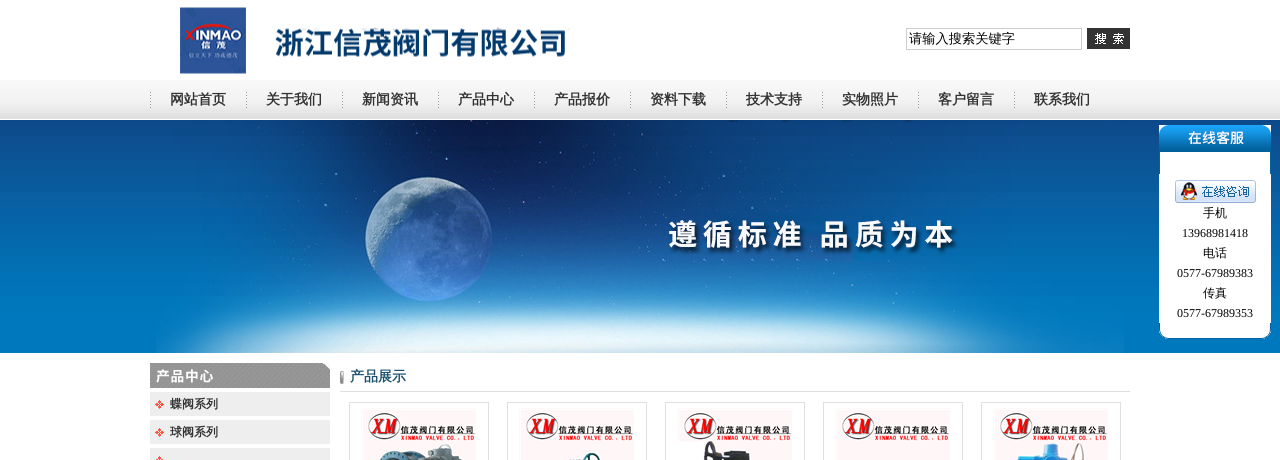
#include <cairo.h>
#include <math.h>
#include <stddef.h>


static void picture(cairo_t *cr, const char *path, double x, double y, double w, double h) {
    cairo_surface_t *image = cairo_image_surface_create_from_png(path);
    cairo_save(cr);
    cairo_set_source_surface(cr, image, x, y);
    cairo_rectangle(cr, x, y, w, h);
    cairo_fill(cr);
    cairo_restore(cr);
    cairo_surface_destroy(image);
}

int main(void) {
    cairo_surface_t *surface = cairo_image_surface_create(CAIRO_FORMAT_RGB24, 1280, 460);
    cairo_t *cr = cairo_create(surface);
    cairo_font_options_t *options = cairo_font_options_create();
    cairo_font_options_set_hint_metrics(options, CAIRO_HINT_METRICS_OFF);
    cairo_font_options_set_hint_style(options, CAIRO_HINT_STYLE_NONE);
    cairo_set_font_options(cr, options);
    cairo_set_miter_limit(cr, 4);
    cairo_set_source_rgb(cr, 1, 1, 1);
    cairo_paint(cr);
    picture(cr, "img1.png", 180, 7, 390, 67);
    cairo_rectangle(cr, 906.5, 28.5, 175, 21);
    cairo_set_source_rgb(cr, 0.8, 0.8, 0.8);
    cairo_set_line_width(cr, 1);
    cairo_stroke(cr);
    cairo_select_font_face(cr, "WenQuanYi Zen Hei Medium", CAIRO_FONT_SLANT_NORMAL, CAIRO_FONT_WEIGHT_NORMAL);
    cairo_set_font_size(cr, 13.25);
    cairo_set_source_rgb(cr, 0, 0, 0);
    cairo_move_to(cr, 909, 43);
    cairo_show_text(cr, "请输入搜索关键字");
    picture(cr, "img2.png", 1087, 28, 43, 21);
    picture(cr, "img3.png", 0, 80, 1280, 39);
    picture(cr, "img4.png", 150, 92, 1, 16);
    cairo_select_font_face(cr, "WenQuanYi Zen Hei", CAIRO_FONT_SLANT_NORMAL, CAIRO_FONT_WEIGHT_BOLD);
    cairo_set_font_size(cr, 14);
    cairo_set_source_rgb(cr, 0.2, 0.2, 0.2);
    cairo_move_to(cr, 170, 104);
    cairo_show_text(cr, "网站首页");
    picture(cr, "img4.png", 246, 92, 1, 16);
    cairo_move_to(cr, 266, 104);
    cairo_show_text(cr, "关于我们");
    picture(cr, "img4.png", 342, 92, 1, 16);
    cairo_move_to(cr, 362, 104);
    cairo_show_text(cr, "新闻资讯");
    picture(cr, "img4.png", 438, 92, 1, 16);
    cairo_move_to(cr, 458, 104);
    cairo_show_text(cr, "产品中心");
    picture(cr, "img4.png", 534, 92, 1, 16);
    cairo_move_to(cr, 554, 104);
    cairo_show_text(cr, "产品报价");
    picture(cr, "img4.png", 630, 92, 1, 16);
    cairo_move_to(cr, 650, 104);
    cairo_show_text(cr, "资料下载");
    picture(cr, "img4.png", 726, 92, 1, 16);
    cairo_move_to(cr, 746, 104);
    cairo_show_text(cr, "技术支持");
    picture(cr, "img4.png", 822, 92, 1, 16);
    cairo_move_to(cr, 842, 104);
    cairo_show_text(cr, "实物照片");
    picture(cr, "img4.png", 918, 92, 1, 16);
    cairo_move_to(cr, 938, 104);
    cairo_show_text(cr, "客户留言");
    picture(cr, "img4.png", 1014, 92, 1, 16);
    cairo_move_to(cr, 1034, 104);
    cairo_show_text(cr, "联系我们");
    picture(cr, "img5.png", 0, 120, 1280, 233);
    picture(cr, "img6.png", 156, 120, 968, 233);
    picture(cr, "img7.png", 1159, 125, 112, 49);
    cairo_set_source_rgb(cr, 1, 1, 1);
    cairo_rectangle(cr, 1159, 174, 112, 149);
    cairo_fill(cr);
    picture(cr, "img8.png", 1175, 180, 81, 23);
    cairo_select_font_face(cr, "WenQuanYi Zen Hei Medium", CAIRO_FONT_SLANT_NORMAL, CAIRO_FONT_WEIGHT_NORMAL);
    cairo_set_font_size(cr, 12);
    cairo_set_source_rgb(cr, 0, 0, 0);
    cairo_move_to(cr, 1203, 217);
    cairo_show_text(cr, "手机");
    cairo_select_font_face(cr, "Liberation Serif", CAIRO_FONT_SLANT_NORMAL, CAIRO_FONT_WEIGHT_NORMAL);
    cairo_move_to(cr, 1182, 237);
    cairo_show_text(cr, "13968981418");
    cairo_select_font_face(cr, "WenQuanYi Zen Hei Medium", CAIRO_FONT_SLANT_NORMAL, CAIRO_FONT_WEIGHT_NORMAL);
    cairo_move_to(cr, 1203, 257);
    cairo_show_text(cr, "电话");
    cairo_select_font_face(cr, "Liberation Serif", CAIRO_FONT_SLANT_NORMAL, CAIRO_FONT_WEIGHT_NORMAL);
    cairo_move_to(cr, 1177, 277);
    cairo_show_text(cr, "0577-67989383");
    cairo_select_font_face(cr, "WenQuanYi Zen Hei Medium", CAIRO_FONT_SLANT_NORMAL, CAIRO_FONT_WEIGHT_NORMAL);
    cairo_move_to(cr, 1203, 297);
    cairo_show_text(cr, "传真");
    cairo_select_font_face(cr, "Liberation Serif", CAIRO_FONT_SLANT_NORMAL, CAIRO_FONT_WEIGHT_NORMAL);
    cairo_move_to(cr, 1177, 317);
    cairo_show_text(cr, "0577-67989353");
    picture(cr, "img9.png", 1159, 323, 112, 16);
    picture(cr, "img10.png", 340, 371, 4, 13);
    cairo_set_source_rgb(cr, 0.878, 0.878, 0.878);
    cairo_rectangle(cr, 340, 391, 790, 1);
    cairo_fill(cr);
    cairo_select_font_face(cr, "WenQuanYi Zen Hei", CAIRO_FONT_SLANT_NORMAL, CAIRO_FONT_WEIGHT_BOLD);
    cairo_set_font_size(cr, 14);
    cairo_set_source_rgb(cr, 0.114, 0.325, 0.435);
    cairo_move_to(cr, 350, 381);
    cairo_show_text(cr, "产品展示");
    cairo_rectangle(cr, 349.5, 402.5, 139, 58);
    cairo_set_source_rgb(cr, 0.878, 0.878, 0.878);
    cairo_stroke(cr);
    picture(cr, "img11.png", 361, 408, 115, 52);
    cairo_rectangle(cr, 507.5, 402.5, 139, 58);
    cairo_stroke(cr);
    picture(cr, "img12.png", 519, 408, 115, 52);
    cairo_rectangle(cr, 665.5, 402.5, 139, 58);
    cairo_stroke(cr);
    picture(cr, "img13.png", 677, 408, 115, 52);
    cairo_rectangle(cr, 823.5, 402.5, 139, 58);
    cairo_stroke(cr);
    picture(cr, "img14.png", 835, 408, 115, 52);
    cairo_rectangle(cr, 981.5, 402.5, 139, 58);
    cairo_stroke(cr);
    picture(cr, "img15.png", 993, 408, 115, 52);
    picture(cr, "img16.png", 150, 363, 180, 25);
    cairo_set_source_rgb(cr, 0.933, 0.933, 0.933);
    cairo_rectangle(cr, 150, 392, 180, 24);
    cairo_fill(cr);
    picture(cr, "img17.png", 155, 400, 9, 9);
    cairo_set_font_size(cr, 12);
    cairo_set_source_rgb(cr, 0.2, 0.2, 0.2);
    cairo_move_to(cr, 170, 408);
    cairo_show_text(cr, "蝶阀系列");
    cairo_set_source_rgb(cr, 0.933, 0.933, 0.933);
    cairo_rectangle(cr, 150, 420, 180, 24);
    cairo_fill(cr);
    picture(cr, "img17.png", 155, 428, 9, 9);
    cairo_set_source_rgb(cr, 0.2, 0.2, 0.2);
    cairo_move_to(cr, 170, 436);
    cairo_show_text(cr, "球阀系列");
    cairo_set_source_rgb(cr, 0.933, 0.933, 0.933);
    cairo_rectangle(cr, 150, 448, 180, 12);
    cairo_fill(cr);
    picture(cr, "img18.png", 156, 456, 7, 4);
    cairo_surface_write_to_png(surface, "page.png");
    cairo_font_options_destroy(options);
    cairo_destroy(cr);
    cairo_surface_destroy(surface);
    return 0;
}
